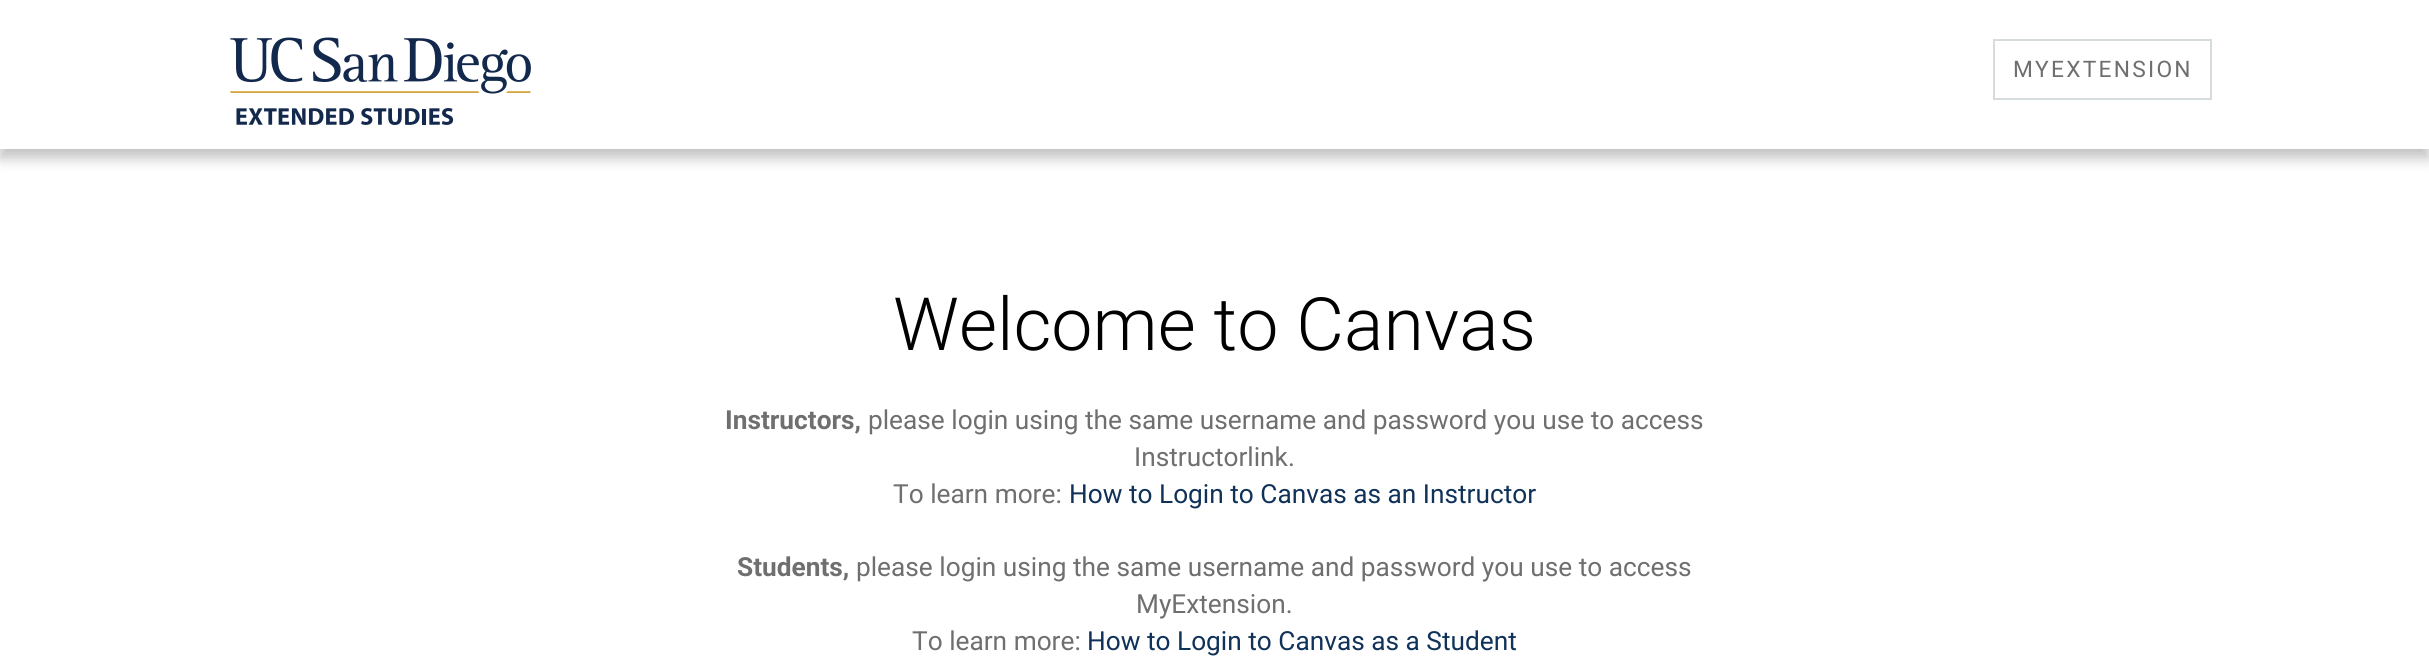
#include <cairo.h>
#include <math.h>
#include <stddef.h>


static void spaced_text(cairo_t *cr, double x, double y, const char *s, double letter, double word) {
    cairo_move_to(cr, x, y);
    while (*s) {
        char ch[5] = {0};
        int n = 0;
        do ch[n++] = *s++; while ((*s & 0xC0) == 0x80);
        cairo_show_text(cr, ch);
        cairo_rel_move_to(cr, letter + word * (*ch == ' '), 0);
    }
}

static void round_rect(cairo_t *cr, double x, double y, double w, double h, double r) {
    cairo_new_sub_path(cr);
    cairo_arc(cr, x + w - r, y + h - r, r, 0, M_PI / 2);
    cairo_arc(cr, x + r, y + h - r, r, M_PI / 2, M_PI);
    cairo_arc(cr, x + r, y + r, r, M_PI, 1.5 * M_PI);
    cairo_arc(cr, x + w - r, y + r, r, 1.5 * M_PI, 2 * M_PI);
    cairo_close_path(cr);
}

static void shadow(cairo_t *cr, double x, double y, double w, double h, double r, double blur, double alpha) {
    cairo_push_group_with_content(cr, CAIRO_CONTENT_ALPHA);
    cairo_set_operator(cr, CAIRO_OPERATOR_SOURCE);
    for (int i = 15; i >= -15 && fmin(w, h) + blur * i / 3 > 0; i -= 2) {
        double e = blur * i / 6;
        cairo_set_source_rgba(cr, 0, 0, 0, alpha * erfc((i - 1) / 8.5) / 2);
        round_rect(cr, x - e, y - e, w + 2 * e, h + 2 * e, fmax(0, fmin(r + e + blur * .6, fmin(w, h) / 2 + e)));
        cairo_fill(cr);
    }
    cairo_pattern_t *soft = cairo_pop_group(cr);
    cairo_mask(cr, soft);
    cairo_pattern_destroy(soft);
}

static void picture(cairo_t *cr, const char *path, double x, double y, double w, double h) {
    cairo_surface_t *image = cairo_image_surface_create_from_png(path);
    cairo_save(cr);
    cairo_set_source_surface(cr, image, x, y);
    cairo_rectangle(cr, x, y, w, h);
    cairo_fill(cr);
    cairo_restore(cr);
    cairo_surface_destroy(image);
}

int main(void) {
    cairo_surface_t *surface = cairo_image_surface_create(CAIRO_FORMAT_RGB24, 2429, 667);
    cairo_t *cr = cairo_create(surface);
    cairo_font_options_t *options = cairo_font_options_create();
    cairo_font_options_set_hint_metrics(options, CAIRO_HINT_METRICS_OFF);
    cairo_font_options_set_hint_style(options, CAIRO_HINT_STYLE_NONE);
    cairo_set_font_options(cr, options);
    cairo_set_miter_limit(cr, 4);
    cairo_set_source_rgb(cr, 1, 1, 1);
    cairo_paint(cr);
    cairo_set_source_rgb(cr, 0, 0, 0);
    shadow(cr, 0, 9, 2429, 149, 0, 7, 0.25);
    cairo_set_source_rgb(cr, 1, 1, 1);
    cairo_rectangle(cr, 0, 0, 2429, 149);
    cairo_fill(cr);
    picture(cr, "img1.png", 230, 37, 301, 88);
    cairo_rectangle(cr, 1994, 40, 217, 59);
    cairo_set_source_rgb(cr, 0.839, 0.859, 0.871);
    cairo_stroke(cr);
    cairo_select_font_face(cr, "Roboto", CAIRO_FONT_SLANT_NORMAL, CAIRO_FONT_WEIGHT_NORMAL);
    cairo_set_font_size(cr, 22.75);
    cairo_set_source_rgb(cr, 0.435, 0.435, 0.435);
    spaced_text(cr, 2013, 77, "MYEXTENSION", 2.25, 0);
    cairo_select_font_face(cr, "Roboto Light", CAIRO_FONT_SLANT_NORMAL, CAIRO_FONT_WEIGHT_NORMAL);
    cairo_set_font_size(cr, 73.5);
    cairo_set_source_rgb(cr, 0, 0, 0);
    cairo_move_to(cr, 893, 350);
    cairo_show_text(cr, "Welcome to Canvas");
    cairo_select_font_face(cr, "Roboto", CAIRO_FONT_SLANT_NORMAL, CAIRO_FONT_WEIGHT_BOLD);
    cairo_set_font_size(cr, 26.25);
    cairo_set_source_rgb(cr, 0.435, 0.435, 0.435);
    cairo_move_to(cr, 725, 429);
    cairo_show_text(cr, "Instructors,");
    cairo_select_font_face(cr, "Roboto", CAIRO_FONT_SLANT_NORMAL, CAIRO_FONT_WEIGHT_NORMAL);
    cairo_move_to(cr, 868, 429);
    cairo_show_text(cr, "please login using the same username and password you use to access");
    cairo_move_to(cr, 1134, 466);
    cairo_show_text(cr, "Instructorlink.");
    cairo_move_to(cr, 893, 503);
    cairo_show_text(cr, "To learn more:");
    cairo_set_source_rgb(cr, 0.063, 0.196, 0.349);
    cairo_move_to(cr, 1069, 503);
    cairo_show_text(cr, "How to Login to Canvas as an Instructor");
    cairo_select_font_face(cr, "Roboto", CAIRO_FONT_SLANT_NORMAL, CAIRO_FONT_WEIGHT_BOLD);
    cairo_set_source_rgb(cr, 0.435, 0.435, 0.435);
    cairo_move_to(cr, 737, 576);
    cairo_show_text(cr, "Students,");
    cairo_select_font_face(cr, "Roboto", CAIRO_FONT_SLANT_NORMAL, CAIRO_FONT_WEIGHT_NORMAL);
    cairo_move_to(cr, 856, 576);
    cairo_show_text(cr, "please login using the same username and password you use to access");
    cairo_move_to(cr, 1136, 613);
    cairo_show_text(cr, "MyExtension.");
    cairo_move_to(cr, 912, 650);
    cairo_show_text(cr, "To learn more:");
    cairo_set_source_rgb(cr, 0.063, 0.196, 0.349);
    cairo_move_to(cr, 1087, 650);
    cairo_show_text(cr, "How to Login to Canvas as a Student");
    cairo_surface_write_to_png(surface, "page.png");
    cairo_font_options_destroy(options);
    cairo_destroy(cr);
    cairo_surface_destroy(surface);
    return 0;
}
